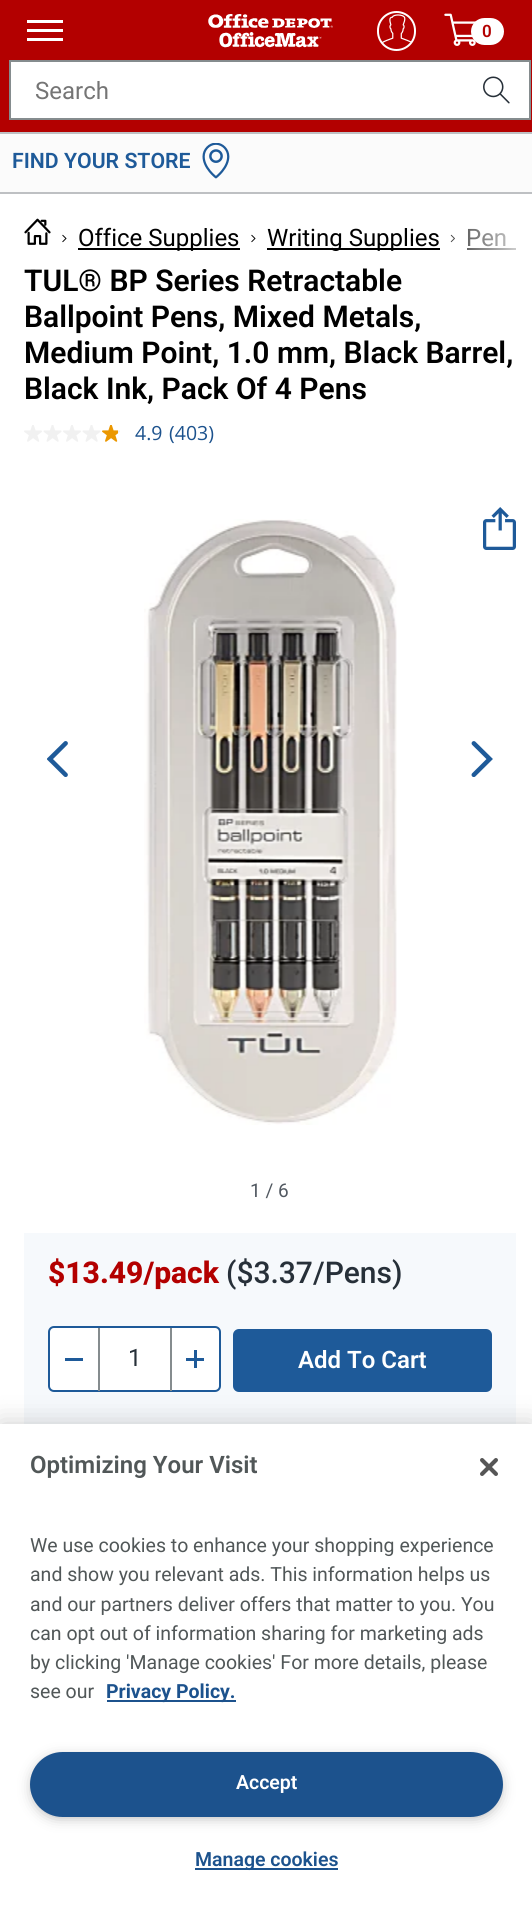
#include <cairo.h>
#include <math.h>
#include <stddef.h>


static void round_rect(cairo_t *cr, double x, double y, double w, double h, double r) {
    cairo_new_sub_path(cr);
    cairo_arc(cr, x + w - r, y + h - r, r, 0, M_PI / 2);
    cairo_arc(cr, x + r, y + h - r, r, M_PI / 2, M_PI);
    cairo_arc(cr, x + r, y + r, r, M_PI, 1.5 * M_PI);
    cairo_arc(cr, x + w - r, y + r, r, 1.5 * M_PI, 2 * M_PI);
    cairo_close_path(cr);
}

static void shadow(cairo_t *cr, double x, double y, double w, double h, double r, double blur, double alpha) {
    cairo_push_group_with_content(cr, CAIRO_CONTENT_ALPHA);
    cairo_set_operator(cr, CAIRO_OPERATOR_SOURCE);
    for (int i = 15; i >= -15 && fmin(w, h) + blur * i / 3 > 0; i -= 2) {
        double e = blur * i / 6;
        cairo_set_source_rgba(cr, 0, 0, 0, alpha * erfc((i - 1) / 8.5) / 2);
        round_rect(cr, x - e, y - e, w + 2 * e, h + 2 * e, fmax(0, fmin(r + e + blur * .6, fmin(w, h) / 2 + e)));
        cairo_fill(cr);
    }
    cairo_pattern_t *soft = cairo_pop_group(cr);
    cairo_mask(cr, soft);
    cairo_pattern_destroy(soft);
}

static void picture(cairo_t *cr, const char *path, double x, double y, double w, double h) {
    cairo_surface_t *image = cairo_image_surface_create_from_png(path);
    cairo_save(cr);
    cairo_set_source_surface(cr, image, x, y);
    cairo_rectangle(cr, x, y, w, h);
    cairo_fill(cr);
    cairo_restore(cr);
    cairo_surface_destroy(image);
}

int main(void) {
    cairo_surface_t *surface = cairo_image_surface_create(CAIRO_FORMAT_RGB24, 532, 1915);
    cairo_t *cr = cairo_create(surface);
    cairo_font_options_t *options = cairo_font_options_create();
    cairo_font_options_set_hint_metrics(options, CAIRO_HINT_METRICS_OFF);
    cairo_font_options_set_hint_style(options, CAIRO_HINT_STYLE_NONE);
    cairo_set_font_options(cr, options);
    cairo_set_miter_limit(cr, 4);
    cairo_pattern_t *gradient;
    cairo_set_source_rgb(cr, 1, 1, 1);
    cairo_paint(cr);
    cairo_set_source_rgb(cr, 0.702, 0, 0);
    cairo_rectangle(cr, 0, 0, 532, 132);
    cairo_fill(cr);
    cairo_set_source_rgb(cr, 0.745, 0.753, 0.765);
    cairo_rectangle(cr, 0, 132, 532, 2);
    cairo_fill(cr);
    cairo_set_source_rgb(cr, 1, 1, 1);
    cairo_rectangle(cr, 27, 20, 36, 3);
    cairo_fill(cr);
    cairo_rectangle(cr, 27, 29, 36, 3);
    cairo_fill(cr);
    cairo_rectangle(cr, 27, 38, 36, 3);
    cairo_fill(cr);
    picture(cr, "img1.png", 208, 14, 125, 34);
    round_rect(cr, 378, 12, 37, 38, 18.5);
    cairo_stroke(cr);
    picture(cr, "img2.png", 382, 14, 29, 29);
    picture(cr, "img3.png", 444, 13, 32, 33);
    round_rect(cr, 471, 18, 33, 27, 13.5);
    cairo_fill(cr);
    cairo_select_font_face(cr, "Roboto SemiBold", CAIRO_FONT_SLANT_NORMAL, CAIRO_FONT_WEIGHT_NORMAL);
    cairo_set_font_size(cr, 17);
    cairo_set_source_rgb(cr, 0.702, 0, 0);
    cairo_move_to(cr, 482, 37);
    cairo_show_text(cr, "0");
    cairo_set_source_rgb(cr, 1, 1, 1);
    cairo_rectangle(cr, 10, 61, 520, 58);
    cairo_fill_preserve(cr);
    cairo_set_source_rgb(cr, 0.522, 0.549, 0.557);
    cairo_stroke(cr);
    cairo_select_font_face(cr, "Roboto", CAIRO_FONT_SLANT_NORMAL, CAIRO_FONT_WEIGHT_NORMAL);
    cairo_set_font_size(cr, 24);
    cairo_set_source_rgb(cr, 0.459, 0.459, 0.459);
    cairo_move_to(cr, 35, 99);
    cairo_show_text(cr, "Search");
    picture(cr, "img4.png", 483, 76, 27, 28);
    cairo_set_source_rgb(cr, 0.984, 0.984, 0.984);
    cairo_rectangle(cr, 0, 134, 532, 58);
    cairo_fill(cr);
    cairo_set_source_rgb(cr, 0.745, 0.753, 0.765);
    cairo_rectangle(cr, 0, 192, 532, 2);
    cairo_fill(cr);
    cairo_select_font_face(cr, "Roboto SemiBold", CAIRO_FONT_SLANT_NORMAL, CAIRO_FONT_WEIGHT_NORMAL);
    cairo_set_font_size(cr, 21.25);
    cairo_set_source_rgb(cr, 0.118, 0.353, 0.6);
    cairo_move_to(cr, 12, 168);
    cairo_show_text(cr, "FIND YOUR STORE");
    picture(cr, "img5.png", 202, 143, 28, 36);
    picture(cr, "img6.png", 24, 218, 27, 27);
    picture(cr, "img7.png", 62, 234, 5, 9);
    cairo_set_source_rgb(cr, 0, 0, 0);
    cairo_rectangle(cr, 78, 248, 162, 2);
    cairo_fill(cr);
    cairo_select_font_face(cr, "Roboto", CAIRO_FONT_SLANT_NORMAL, CAIRO_FONT_WEIGHT_NORMAL);
    cairo_set_font_size(cr, 24);
    cairo_move_to(cr, 78, 246);
    cairo_show_text(cr, "Office Supplies");
    picture(cr, "img7.png", 251, 234, 5, 9);
    cairo_rectangle(cr, 267, 248, 173, 2);
    cairo_fill(cr);
    cairo_move_to(cr, 267, 246);
    cairo_show_text(cr, "Writing Supplies");
    picture(cr, "img8.png", 450, 234, 5, 9);
    cairo_move_to(cr, 466, 246);
    cairo_show_text(cr, "Pen");
    cairo_rectangle(cr, 467, 248, 49, 2);
    cairo_fill(cr);
    gradient = cairo_pattern_create_linear(516, 240, 443, 240);
    cairo_pattern_add_color_stop_rgba(gradient, 0, 1, 1, 1, 0.8);
    cairo_pattern_add_color_stop_rgba(gradient, 1, 1, 1, 1, 0.2);
    cairo_set_source(cr, gradient);
    cairo_pattern_destroy(gradient);
    cairo_rectangle(cr, 450, 228, 66, 22);
    cairo_fill(cr);
    cairo_select_font_face(cr, "Roboto SemiBold", CAIRO_FONT_SLANT_NORMAL, CAIRO_FONT_WEIGHT_NORMAL);
    cairo_set_font_size(cr, 30);
    cairo_set_source_rgb(cr, 0, 0, 0);
    cairo_move_to(cr, 24, 291);
    cairo_show_text(cr, "TUL® BP Series Retractable");
    cairo_move_to(cr, 24, 327);
    cairo_show_text(cr, "Ballpoint Pens, Mixed Metals,");
    cairo_move_to(cr, 24, 363);
    cairo_show_text(cr, "Medium Point, 1.0 mm, Black Barrel,");
    cairo_move_to(cr, 24, 399);
    cairo_show_text(cr, "Black Ink, Pack Of 4 Pens");
    picture(cr, "img9.png", 24, 425, 18, 17);
    picture(cr, "img10.png", 43, 425, 19, 17);
    picture(cr, "img9.png", 63, 425, 18, 17);
    picture(cr, "img10.png", 82, 425, 19, 17);
    picture(cr, "img11.png", 102, 425, 18, 17);
    cairo_select_font_face(cr, "Open Sans", CAIRO_FONT_SLANT_NORMAL, CAIRO_FONT_WEIGHT_NORMAL);
    cairo_set_font_size(cr, 19.5);
    cairo_set_source_rgb(cr, 0.11, 0.322, 0.553);
    cairo_move_to(cr, 135, 440);
    cairo_show_text(cr, "4.9");
    cairo_move_to(cr, 169, 440);
    cairo_show_text(cr, "(403)");
    picture(cr, "img12.png", 144, 519, 253, 606);
    picture(cr, "img13.png", 47, 741, 21, 36);
    picture(cr, "img14.png", 471, 741, 22, 36);
    picture(cr, "img15.png", 483, 507, 33, 43);
    cairo_select_font_face(cr, "Roboto", CAIRO_FONT_SLANT_NORMAL, CAIRO_FONT_WEIGHT_NORMAL);
    cairo_set_font_size(cr, 19);
    cairo_set_source_rgb(cr, 0.322, 0.349, 0.38);
    cairo_move_to(cr, 250, 1197);
    cairo_show_text(cr, "1 / 6");
    cairo_set_source_rgb(cr, 0.961, 0.973, 0.988);
    cairo_rectangle(cr, 24, 1233, 492, 191);
    cairo_fill(cr);
    cairo_select_font_face(cr, "Roboto ExtraBold", CAIRO_FONT_SLANT_NORMAL, CAIRO_FONT_WEIGHT_NORMAL);
    cairo_set_font_size(cr, 30);
    cairo_set_source_rgb(cr, 0.702, 0, 0);
    cairo_move_to(cr, 48, 1283);
    cairo_show_text(cr, "$13.49/pack");
    cairo_select_font_face(cr, "Roboto Medium", CAIRO_FONT_SLANT_NORMAL, CAIRO_FONT_WEIGHT_NORMAL);
    cairo_set_source_rgb(cr, 0.153, 0.188, 0.224);
    cairo_move_to(cr, 226, 1283);
    cairo_show_text(cr, "($3.37/Pens)");
    cairo_set_source_rgb(cr, 1, 1, 1);
    round_rect(cr, 49, 1327, 171, 64, 5);
    cairo_fill_preserve(cr);
    cairo_set_source_rgb(cr, 0.118, 0.353, 0.6);
    cairo_stroke(cr);
    cairo_rectangle(cr, 65, 1358, 18, 3);
    cairo_fill(cr);
    cairo_set_source_rgb(cr, 0.522, 0.549, 0.557);
    cairo_rectangle(cr, 170, 1328, 2, 63);
    cairo_fill(cr);
    cairo_rectangle(cr, 98, 1328, 2, 63);
    cairo_fill(cr);
    cairo_select_font_face(cr, "Roboto", CAIRO_FONT_SLANT_NORMAL, CAIRO_FONT_WEIGHT_NORMAL);
    cairo_set_font_size(cr, 24);
    cairo_set_source_rgb(cr, 0.153, 0.188, 0.224);
    cairo_move_to(cr, 128, 1366);
    cairo_show_text(cr, "1");
    cairo_set_source_rgb(cr, 0.118, 0.353, 0.6);
    cairo_rectangle(cr, 186, 1358, 18, 3);
    cairo_fill(cr);
    cairo_rectangle(cr, 194, 1350, 3, 18);
    cairo_fill(cr);
    round_rect(cr, 234, 1330, 257, 61, 5);
    cairo_fill_preserve(cr);
    cairo_stroke(cr);
    cairo_select_font_face(cr, "Roboto SemiBold", CAIRO_FONT_SLANT_NORMAL, CAIRO_FONT_WEIGHT_NORMAL);
    cairo_set_source_rgb(cr, 1, 1, 1);
    cairo_move_to(cr, 298, 1368);
    cairo_show_text(cr, "Add To Cart");
    cairo_set_source_rgb(cr, 0, 0, 0);
    shadow(cr, 0, 1424, 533, 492, 0, 13.5, 0.2);
    cairo_set_source_rgb(cr, 1, 1, 1);
    cairo_rectangle(cr, 0, 1424, 532, 491);
    cairo_fill(cr);
    cairo_set_source_rgb(cr, 0.318, 0.341, 0.345);
    cairo_move_to(cr, 30, 1473);
    cairo_show_text(cr, "Optimizing Your Visit");
    cairo_select_font_face(cr, "Roboto", CAIRO_FONT_SLANT_NORMAL, CAIRO_FONT_WEIGHT_NORMAL);
    cairo_set_font_size(cr, 19.5);
    cairo_move_to(cr, 30, 1552);
    cairo_show_text(cr, "We use cookies to enhance your shopping experience");
    cairo_move_to(cr, 30, 1581);
    cairo_show_text(cr, "and show you relevant ads. This information helps us");
    cairo_move_to(cr, 30, 1611);
    cairo_show_text(cr, "and our partners deliver offers that matter to you. You");
    cairo_move_to(cr, 30, 1640);
    cairo_show_text(cr, "can opt out of information sharing for marketing ads");
    cairo_move_to(cr, 30, 1669);
    cairo_show_text(cr, "by clicking 'Manage cookies' For more details, please");
    cairo_move_to(cr, 30, 1698);
    cairo_show_text(cr, "see our");
    cairo_set_source_rgb(cr, 0.11, 0.322, 0.553);
    cairo_rectangle(cr, 107, 1700, 129, 2);
    cairo_fill(cr);
    cairo_select_font_face(cr, "Roboto", CAIRO_FONT_SLANT_NORMAL, CAIRO_FONT_WEIGHT_BOLD);
    cairo_move_to(cr, 106, 1698);
    cairo_show_text(cr, "Privacy Policy.");
    cairo_set_source_rgb(cr, 0.6, 0.6, 0.6);
    shadow(cr, 35, 1760, 463, 55, 27.5, 7.5, 1);
    cairo_set_source_rgb(cr, 0.11, 0.322, 0.553);
    round_rect(cr, 31, 1753, 471, 63, 31.5);
    cairo_fill_preserve(cr);
    cairo_stroke(cr);
    cairo_select_font_face(cr, "Roboto SemiBold", CAIRO_FONT_SLANT_NORMAL, CAIRO_FONT_WEIGHT_NORMAL);
    cairo_set_source_rgb(cr, 1, 1, 1);
    cairo_move_to(cr, 236, 1789);
    cairo_show_text(cr, "Accept");
    cairo_set_source_rgb(cr, 0.11, 0.322, 0.553);
    cairo_rectangle(cr, 195, 1868, 143, 2);
    cairo_fill(cr);
    cairo_move_to(cr, 195, 1866);
    cairo_show_text(cr, "Manage cookies");
    picture(cr, "img16.png", 480, 1458, 18, 18);
    cairo_surface_write_to_png(surface, "page.png");
    cairo_font_options_destroy(options);
    cairo_destroy(cr);
    cairo_surface_destroy(surface);
    return 0;
}
